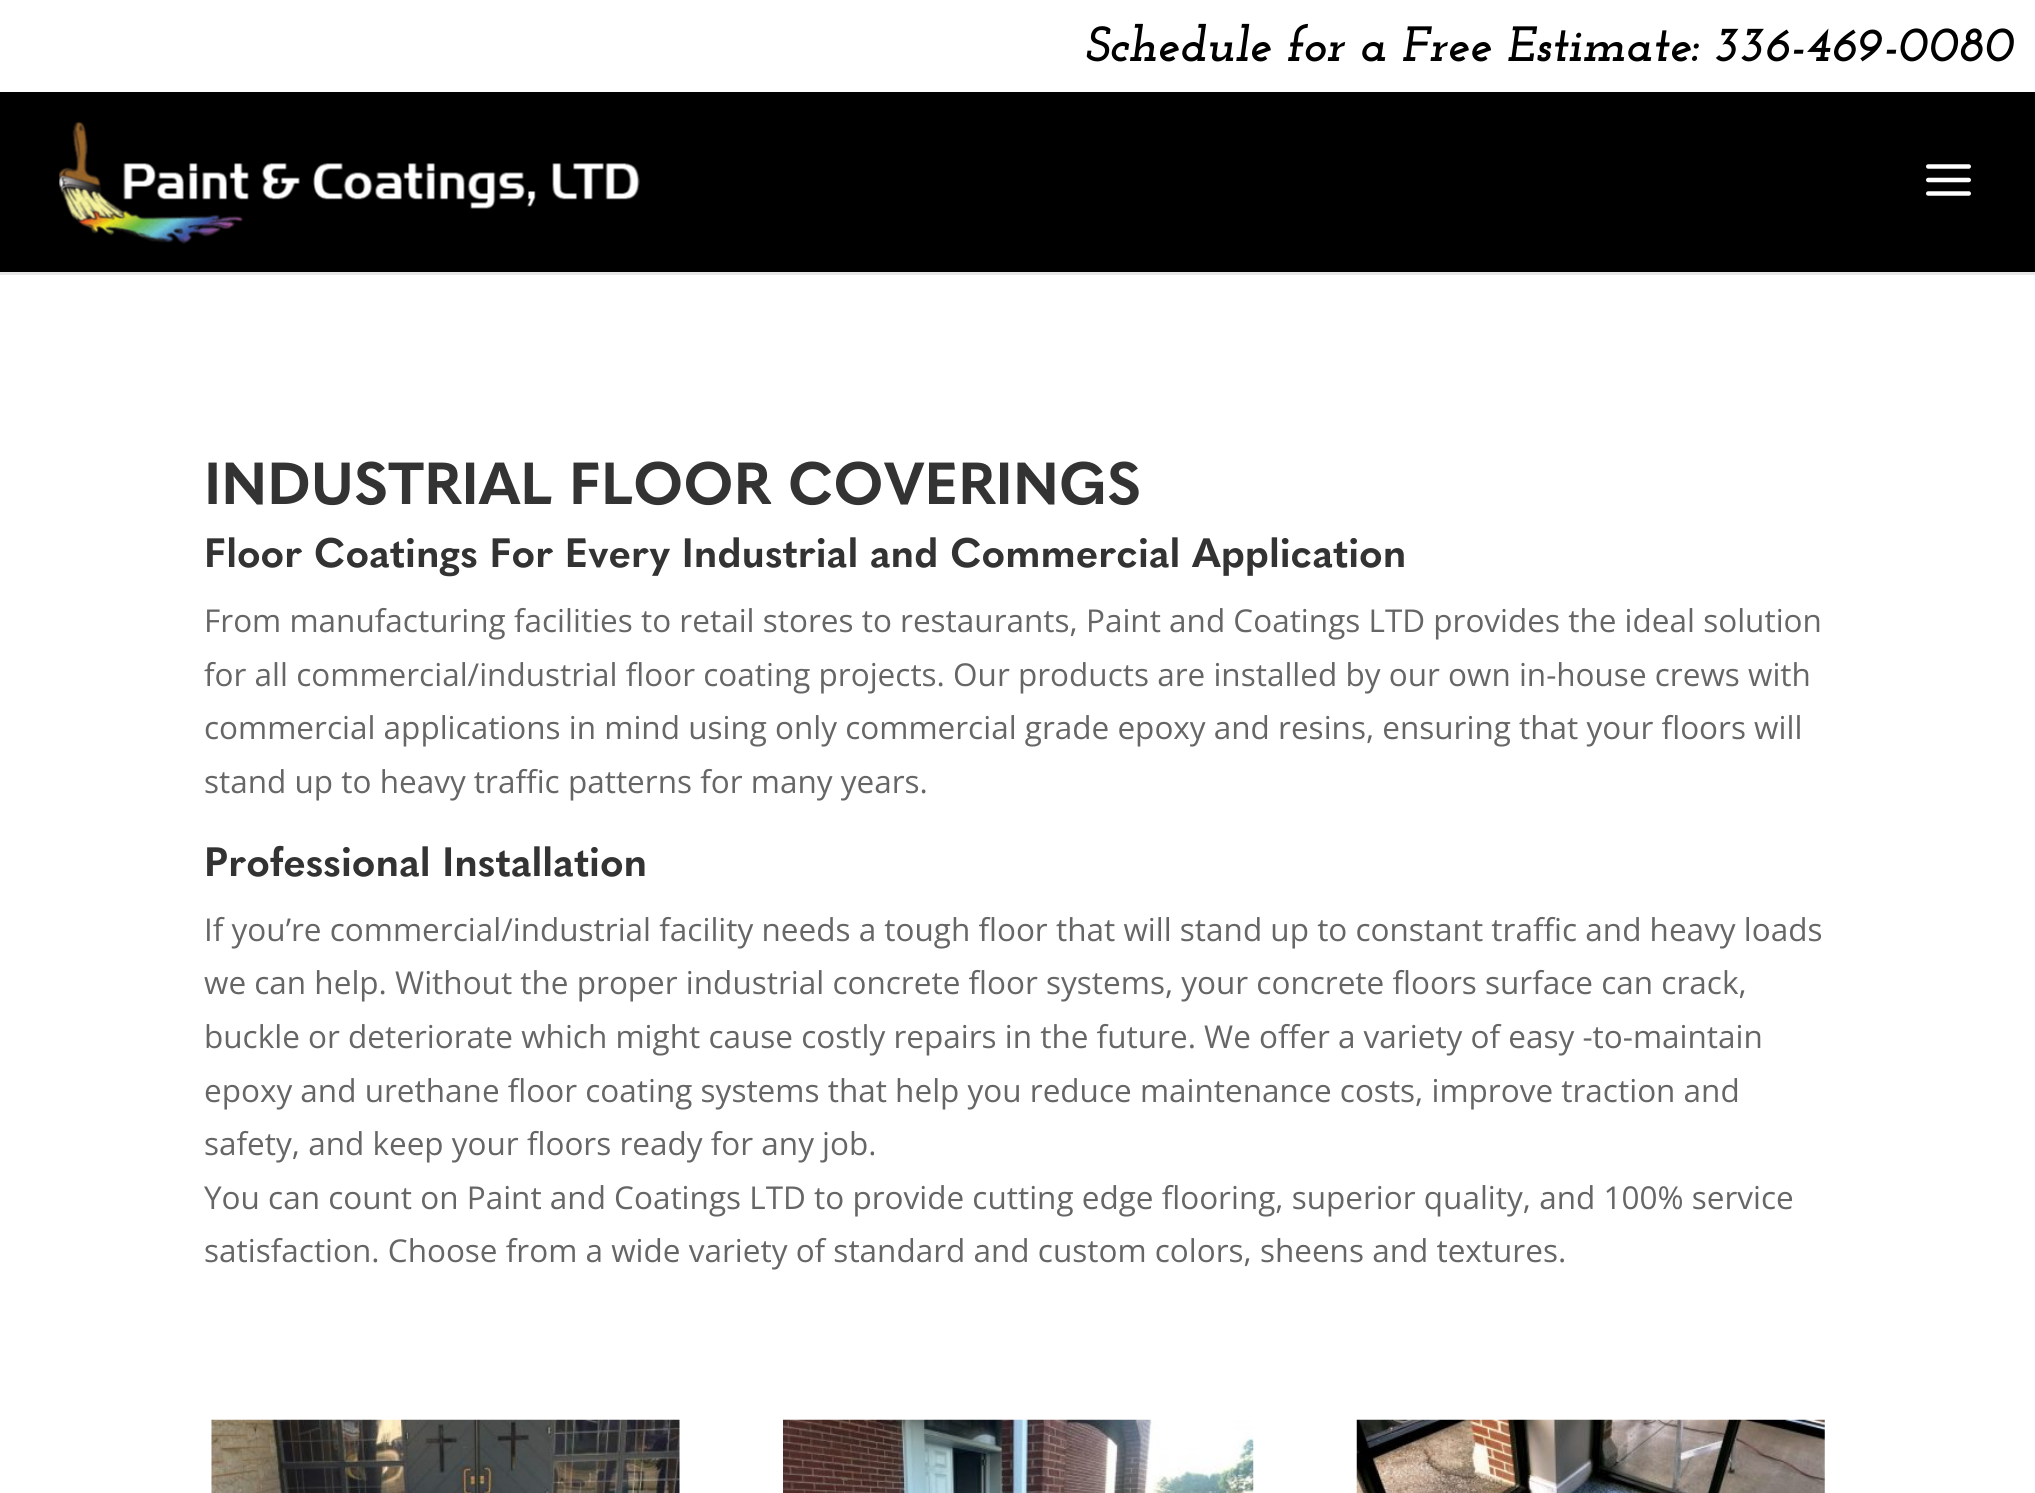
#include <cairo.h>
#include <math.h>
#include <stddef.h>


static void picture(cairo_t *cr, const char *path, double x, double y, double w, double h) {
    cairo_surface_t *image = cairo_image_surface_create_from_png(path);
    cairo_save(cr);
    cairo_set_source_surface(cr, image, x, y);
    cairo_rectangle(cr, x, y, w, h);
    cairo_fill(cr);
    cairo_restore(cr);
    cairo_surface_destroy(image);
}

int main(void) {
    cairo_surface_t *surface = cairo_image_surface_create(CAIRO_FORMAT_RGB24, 2035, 1493);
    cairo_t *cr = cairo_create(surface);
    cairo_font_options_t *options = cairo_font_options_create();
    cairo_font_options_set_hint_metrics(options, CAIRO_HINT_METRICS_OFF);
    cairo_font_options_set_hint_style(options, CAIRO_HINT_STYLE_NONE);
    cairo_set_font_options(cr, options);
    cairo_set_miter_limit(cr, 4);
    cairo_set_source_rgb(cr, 1, 1, 1);
    cairo_paint(cr);
    cairo_select_font_face(cr, "Josefin Slab", CAIRO_FONT_SLANT_ITALIC, CAIRO_FONT_WEIGHT_BOLD);
    cairo_set_font_size(cr, 49.5);
    cairo_set_source_rgb(cr, 0, 0, 0);
    cairo_move_to(cr, 1085, 61);
    cairo_show_text(cr, "Schedule for a Free Estimate: 336-469-0080");
    cairo_set_source_rgb(cr, 0.902, 0.902, 0.902);
    cairo_rectangle(cr, 0, 272, 2035, 3);
    cairo_fill(cr);
    cairo_set_source_rgb(cr, 0, 0, 0);
    cairo_rectangle(cr, 0, 92, 2035, 180);
    cairo_fill(cr);
    picture(cr, "img1.png", 59, 122, 581, 122);
    picture(cr, "img2.png", 1926, 164, 45, 32);
    cairo_select_font_face(cr, "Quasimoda", CAIRO_FONT_SLANT_NORMAL, CAIRO_FONT_WEIGHT_BOLD);
    cairo_set_font_size(cr, 58.5);
    cairo_set_source_rgb(cr, 0.2, 0.2, 0.2);
    cairo_move_to(cr, 204, 504);
    cairo_show_text(cr, "INDUSTRIAL FLOOR COVERINGS");
    cairo_set_font_size(cr, 40.5);
    cairo_move_to(cr, 204, 567);
    cairo_show_text(cr, "Floor Coatings For Every Industrial and Commercial Application");
    cairo_select_font_face(cr, "Open Sans", CAIRO_FONT_SLANT_NORMAL, CAIRO_FONT_WEIGHT_NORMAL);
    cairo_set_font_size(cr, 31.5);
    cairo_set_source_rgb(cr, 0.4, 0.4, 0.4);
    cairo_move_to(cr, 204, 632);
    cairo_show_text(cr, "From manufacturing facilities to retail stores to restaurants, Paint and Coatings LTD provides the ideal solution");
    cairo_move_to(cr, 204, 686);
    cairo_show_text(cr, "for all commercial/industrial floor coating projects. Our products are installed by our own in-house crews with");
    cairo_move_to(cr, 204, 739);
    cairo_show_text(cr, "commercial applications in mind using only commercial grade epoxy and resins, ensuring that your floors will");
    cairo_move_to(cr, 204, 793);
    cairo_show_text(cr, "stand up to heavy traffic patterns for many years.");
    cairo_select_font_face(cr, "Quasimoda", CAIRO_FONT_SLANT_NORMAL, CAIRO_FONT_WEIGHT_BOLD);
    cairo_set_font_size(cr, 40.5);
    cairo_set_source_rgb(cr, 0.2, 0.2, 0.2);
    cairo_move_to(cr, 204, 876);
    cairo_show_text(cr, "Professional Installation");
    cairo_select_font_face(cr, "Open Sans", CAIRO_FONT_SLANT_NORMAL, CAIRO_FONT_WEIGHT_NORMAL);
    cairo_set_font_size(cr, 31.5);
    cairo_set_source_rgb(cr, 0.4, 0.4, 0.4);
    cairo_move_to(cr, 204, 941);
    cairo_show_text(cr, "If you’re commercial/industrial facility needs a tough floor that will stand up to constant traffic and heavy loads");
    cairo_move_to(cr, 204, 994);
    cairo_show_text(cr, "we can help. Without the proper industrial concrete floor systems, your concrete floors surface can crack,");
    cairo_move_to(cr, 204, 1048);
    cairo_show_text(cr, "buckle or deteriorate which might cause costly repairs in the future. We offer a variety of easy -to-maintain");
    cairo_move_to(cr, 204, 1102);
    cairo_show_text(cr, "epoxy and urethane floor coating systems that help you reduce maintenance costs, improve traction and");
    cairo_move_to(cr, 204, 1155);
    cairo_show_text(cr, "safety, and keep your floors ready for any job.");
    cairo_move_to(cr, 204, 1209);
    cairo_show_text(cr, "You can count on Paint and Coatings LTD to provide cutting edge flooring, superior quality, and 100% service");
    cairo_move_to(cr, 204, 1262);
    cairo_show_text(cr, "satisfaction. Choose from a wide variety of standard and custom colors, sheens and textures.");
    picture(cr, "img3.png", 211, 1419, 469, 74);
    picture(cr, "img4.png", 783, 1419, 471, 74);
    picture(cr, "img5.png", 1356, 1419, 469, 74);
    cairo_surface_write_to_png(surface, "page.png");
    cairo_font_options_destroy(options);
    cairo_destroy(cr);
    cairo_surface_destroy(surface);
    return 0;
}
